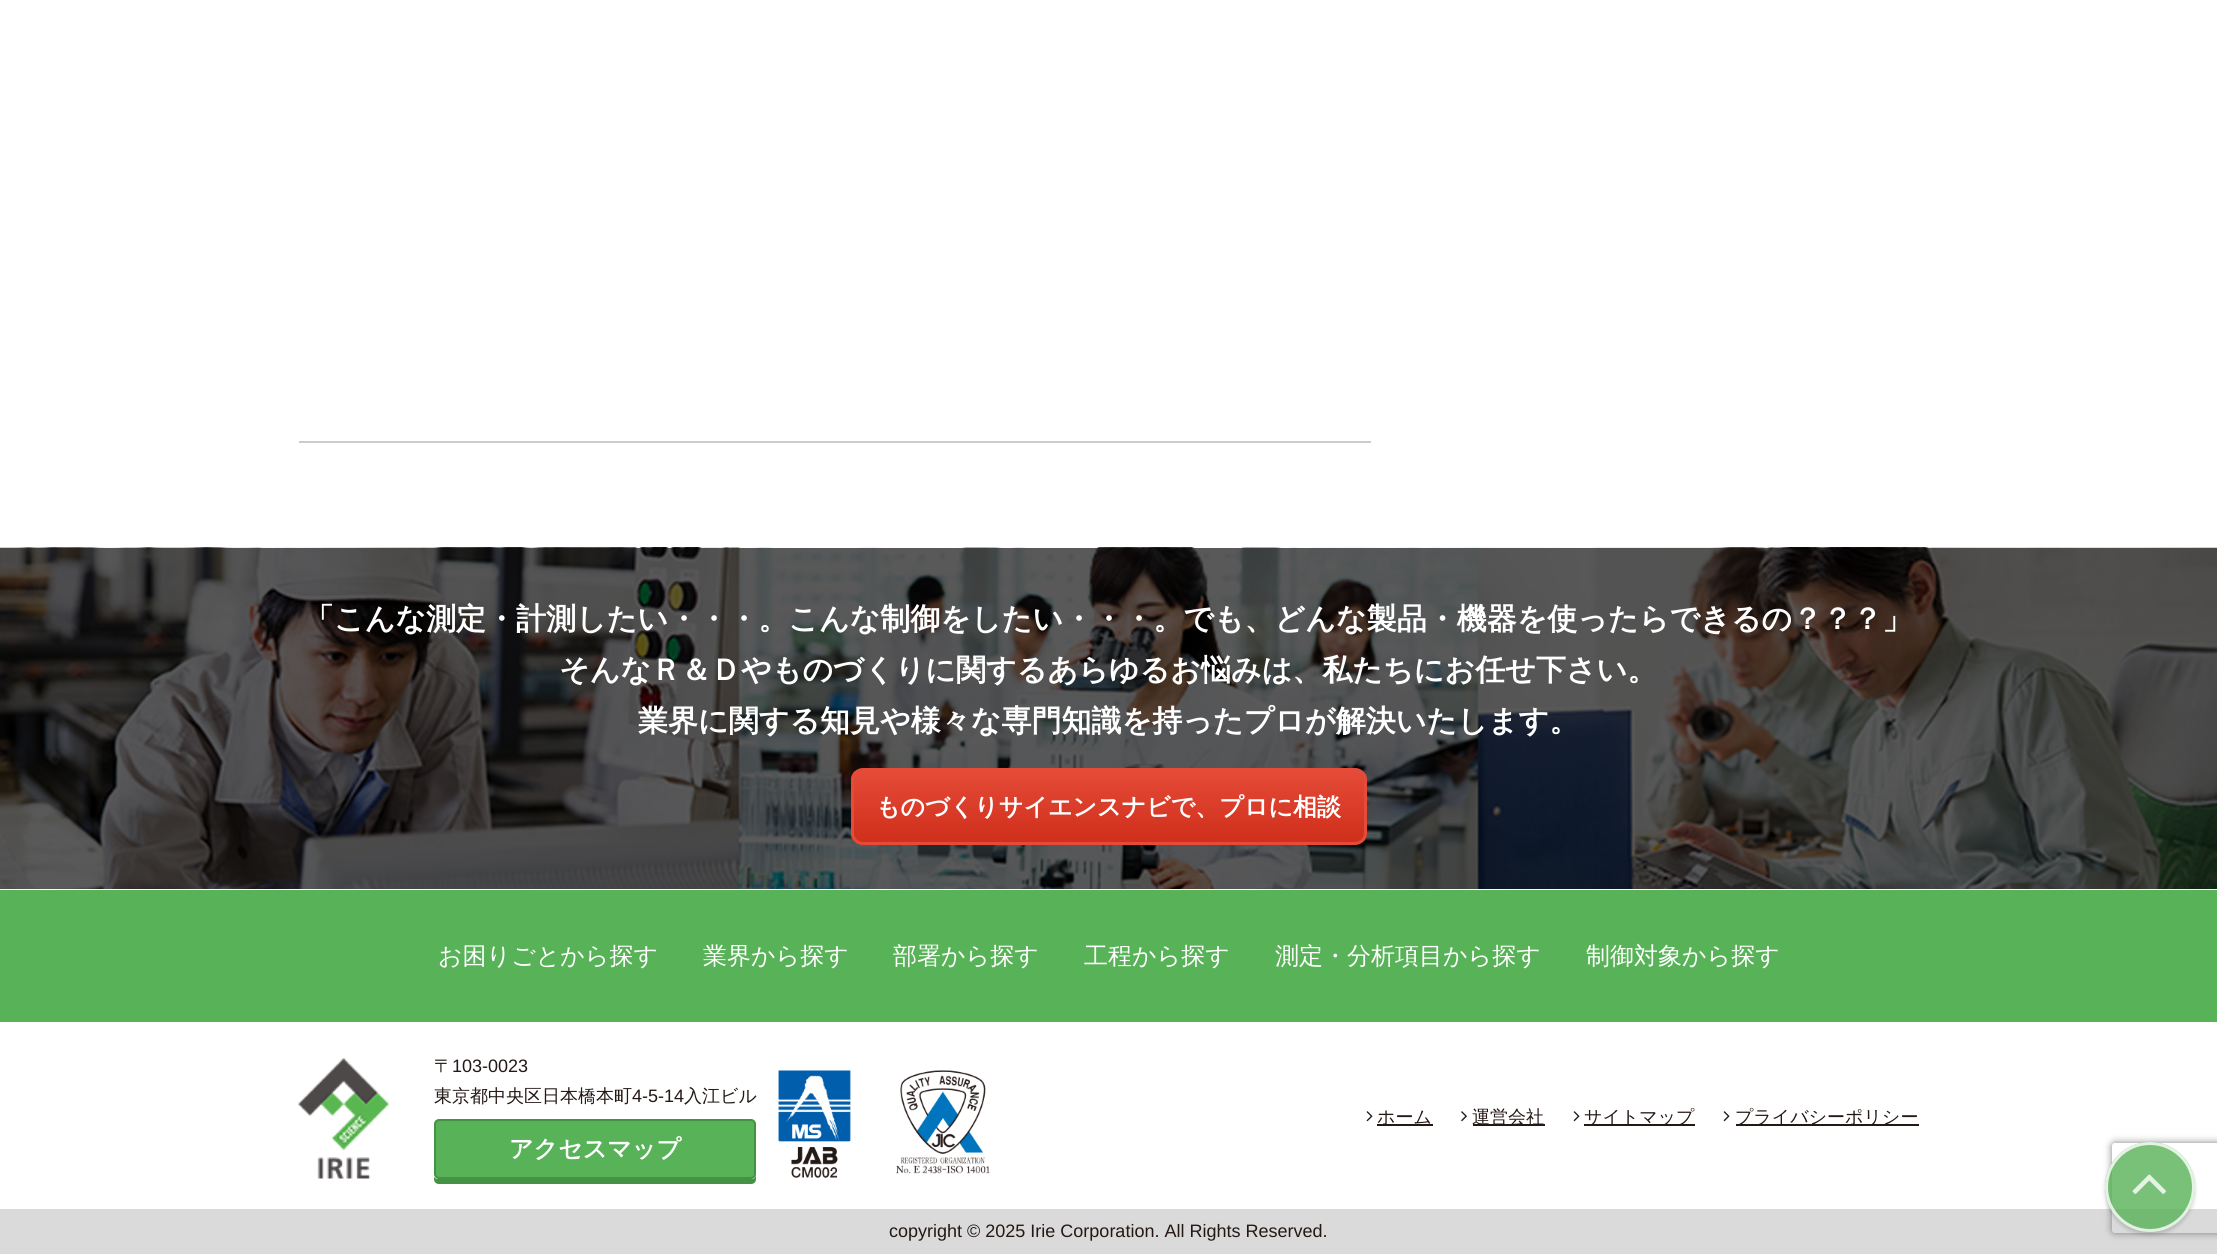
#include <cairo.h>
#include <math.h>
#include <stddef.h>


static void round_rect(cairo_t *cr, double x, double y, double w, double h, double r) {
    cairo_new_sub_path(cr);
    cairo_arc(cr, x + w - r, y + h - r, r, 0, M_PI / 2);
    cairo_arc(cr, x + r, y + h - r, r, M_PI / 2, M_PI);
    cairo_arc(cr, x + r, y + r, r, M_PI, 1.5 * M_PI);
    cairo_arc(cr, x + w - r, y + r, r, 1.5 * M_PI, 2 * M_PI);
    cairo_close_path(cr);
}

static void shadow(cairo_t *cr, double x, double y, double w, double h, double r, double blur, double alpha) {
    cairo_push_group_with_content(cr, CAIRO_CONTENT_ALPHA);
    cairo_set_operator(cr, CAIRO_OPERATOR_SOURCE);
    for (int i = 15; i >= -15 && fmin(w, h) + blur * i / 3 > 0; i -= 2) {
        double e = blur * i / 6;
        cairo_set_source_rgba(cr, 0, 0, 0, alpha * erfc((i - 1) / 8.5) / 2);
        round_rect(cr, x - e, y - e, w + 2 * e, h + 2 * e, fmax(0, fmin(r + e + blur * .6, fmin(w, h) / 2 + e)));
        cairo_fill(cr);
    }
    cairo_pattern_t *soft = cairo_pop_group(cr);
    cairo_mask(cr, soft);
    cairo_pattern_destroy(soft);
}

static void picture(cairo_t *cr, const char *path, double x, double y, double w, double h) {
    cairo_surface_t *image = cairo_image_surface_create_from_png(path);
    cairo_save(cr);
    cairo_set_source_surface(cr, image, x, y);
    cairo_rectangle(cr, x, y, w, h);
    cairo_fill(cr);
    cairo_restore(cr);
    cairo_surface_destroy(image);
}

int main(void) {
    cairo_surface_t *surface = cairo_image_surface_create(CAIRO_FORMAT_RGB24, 2217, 1254);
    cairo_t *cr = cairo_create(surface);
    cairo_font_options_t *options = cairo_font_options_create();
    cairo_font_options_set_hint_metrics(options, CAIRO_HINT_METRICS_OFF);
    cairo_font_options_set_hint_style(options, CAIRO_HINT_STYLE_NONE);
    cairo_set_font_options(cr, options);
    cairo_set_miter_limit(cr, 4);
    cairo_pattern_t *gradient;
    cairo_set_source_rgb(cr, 1, 1, 1);
    cairo_paint(cr);
    cairo_set_source_rgb(cr, 0.8, 0.8, 0.8);
    cairo_rectangle(cr, 299, 441, 1072, 2);
    cairo_fill(cr);
    picture(cr, "img1.png", 0, 547, 2217, 342);
    cairo_select_font_face(cr, "WenQuanYi Zen Hei", CAIRO_FONT_SLANT_NORMAL, CAIRO_FONT_WEIGHT_BOLD);
    cairo_set_font_size(cr, 30);
    cairo_set_source_rgb(cr, 1, 1, 1);
    cairo_move_to(cr, 304, 629);
    cairo_show_text(cr, "「こんな測定・計測したい・・・。こんな制御をしたい・・・。でも、どんな製品・機器を使ったらできるの？？？」");
    cairo_move_to(cr, 559, 680);
    cairo_show_text(cr, "そんなＲ＆Ｄやものづくりに関するあらゆるお悩みは、私たちにお任せ下さい。");
    cairo_move_to(cr, 638, 731);
    cairo_show_text(cr, "業界に関する知見や様々な専門知識を持ったプロが解決いたします。");
    cairo_save(cr);
    round_rect(cr, 851, 768, 516, 77, 12);
    cairo_clip(cr);
    gradient = cairo_pattern_create_linear(1109, 771, 1109, 842);
    cairo_pattern_add_color_stop_rgba(gradient, 0, 0.898, 0.294, 0.22, 1);
    cairo_pattern_add_color_stop_rgba(gradient, 1, 0.812, 0.184, 0.106, 1);
    cairo_set_source(cr, gradient);
    cairo_pattern_destroy(gradient);
    cairo_rectangle(cr, 851, 771, 516, 71);
    cairo_fill(cr);
    cairo_restore(cr);
    round_rect(cr, 852.5, 769.5, 513, 74, 10.5);
    cairo_set_source_rgb(cr, 0.898, 0.294, 0.22);
    cairo_set_line_width(cr, 3);
    cairo_stroke(cr);
    cairo_set_font_size(cr, 24);
    cairo_set_source_rgb(cr, 1, 1, 1);
    cairo_move_to(cr, 876, 815);
    cairo_show_text(cr, "ものづくりサイエンスナビで、プロに相談");
    cairo_set_source_rgb(cr, 0.345, 0.698, 0.345);
    cairo_rectangle(cr, 0, 890, 2217, 132);
    cairo_fill(cr);
    cairo_select_font_face(cr, "WenQuanYi Zen Hei Medium", CAIRO_FONT_SLANT_NORMAL, CAIRO_FONT_WEIGHT_NORMAL);
    cairo_set_source_rgb(cr, 1, 1, 1);
    cairo_move_to(cr, 438, 964);
    cairo_show_text(cr, "お困りごとから探す");
    cairo_move_to(cr, 703, 964);
    cairo_show_text(cr, "業界から探す");
    cairo_move_to(cr, 893, 964);
    cairo_show_text(cr, "部署から探す");
    cairo_move_to(cr, 1084, 964);
    cairo_show_text(cr, "工程から探す");
    cairo_move_to(cr, 1275, 964);
    cairo_show_text(cr, "測定・分析項目から探す");
    cairo_move_to(cr, 1586, 964);
    cairo_show_text(cr, "制御対象から探す");
    picture(cr, "img2.png", 298, 1058, 91, 121);
    cairo_set_font_size(cr, 18);
    cairo_set_source_rgb(cr, 0.137, 0.094, 0.082);
    cairo_move_to(cr, 434, 1072);
    cairo_show_text(cr, "〒");
    cairo_select_font_face(cr, "Liberation Sans", CAIRO_FONT_SLANT_NORMAL, CAIRO_FONT_WEIGHT_NORMAL);
    cairo_move_to(cr, 452, 1072);
    cairo_show_text(cr, "103-0023");
    cairo_select_font_face(cr, "WenQuanYi Zen Hei Medium", CAIRO_FONT_SLANT_NORMAL, CAIRO_FONT_WEIGHT_NORMAL);
    cairo_move_to(cr, 434, 1102);
    cairo_show_text(cr, "東京都中央区日本橋本町");
    cairo_select_font_face(cr, "Liberation Sans", CAIRO_FONT_SLANT_NORMAL, CAIRO_FONT_WEIGHT_NORMAL);
    cairo_move_to(cr, 632, 1102);
    cairo_show_text(cr, "4-5-14");
    cairo_select_font_face(cr, "WenQuanYi Zen Hei Medium", CAIRO_FONT_SLANT_NORMAL, CAIRO_FONT_WEIGHT_NORMAL);
    cairo_move_to(cr, 684, 1102);
    cairo_show_text(cr, "入江ビル");
    cairo_set_source_rgb(cr, 0.267, 0.576, 0.267);
    cairo_new_path(cr);
    cairo_move_to(cr, 434, 1177);
    cairo_line_to(cr, 434, 1179);
    cairo_curve_to(cr, 434, 1182, 436, 1184, 439, 1184);
    cairo_line_to(cr, 751, 1184);
    cairo_curve_to(cr, 754, 1184, 756, 1182, 756, 1179);
    cairo_line_to(cr, 756, 1174);
    cairo_curve_to(cr, 756, 1177, 754, 1179, 752, 1179);
    cairo_line_to(cr, 438, 1179);
    cairo_curve_to(cr, 436, 1179, 435, 1178, 434, 1177);
    cairo_close_path(cr);
    cairo_fill(cr);
    cairo_set_source_rgb(cr, 0.345, 0.698, 0.345);
    round_rect(cr, 435, 1120, 320, 58, 4);
    cairo_fill_preserve(cr);
    cairo_set_source_rgb(cr, 0.267, 0.576, 0.267);
    cairo_set_line_width(cr, 2);
    cairo_stroke(cr);
    cairo_select_font_face(cr, "WenQuanYi Zen Hei", CAIRO_FONT_SLANT_NORMAL, CAIRO_FONT_WEIGHT_BOLD);
    cairo_set_font_size(cr, 24);
    cairo_set_source_rgb(cr, 1, 1, 1);
    cairo_move_to(cr, 509, 1157);
    cairo_show_text(cr, "アクセスマップ");
    picture(cr, "img3.png", 778, 1070, 212, 108);
    picture(cr, "img4.png", 1366, 1111, 7, 11);
    cairo_set_source_rgb(cr, 0.137, 0.094, 0.082);
    cairo_rectangle(cr, 1377, 1124, 56, 2);
    cairo_fill(cr);
    cairo_select_font_face(cr, "WenQuanYi Zen Hei Medium", CAIRO_FONT_SLANT_NORMAL, CAIRO_FONT_WEIGHT_NORMAL);
    cairo_set_font_size(cr, 18);
    cairo_move_to(cr, 1377, 1123);
    cairo_show_text(cr, "ホーム");
    picture(cr, "img5.png", 1461, 1111, 6, 11);
    cairo_rectangle(cr, 1473, 1124, 72, 2);
    cairo_fill(cr);
    cairo_move_to(cr, 1472, 1123);
    cairo_show_text(cr, "運営会社");
    picture(cr, "img4.png", 1573, 1111, 7, 11);
    cairo_rectangle(cr, 1584, 1124, 111, 2);
    cairo_fill(cr);
    cairo_move_to(cr, 1584, 1123);
    cairo_show_text(cr, "サイトマップ");
    picture(cr, "img4.png", 1723, 1111, 7, 11);
    cairo_rectangle(cr, 1736, 1124, 183, 2);
    cairo_fill(cr);
    cairo_move_to(cr, 1735, 1123);
    cairo_show_text(cr, "プライバシーポリシー");
    cairo_set_source_rgb(cr, 0.855, 0.855, 0.855);
    cairo_rectangle(cr, 0, 1209, 2217, 45);
    cairo_fill(cr);
    cairo_select_font_face(cr, "Liberation Sans", CAIRO_FONT_SLANT_NORMAL, CAIRO_FONT_WEIGHT_NORMAL);
    cairo_set_source_rgb(cr, 0.137, 0.094, 0.082);
    cairo_move_to(cr, 889, 1237);
    cairo_show_text(cr, "copyright © 2025 Irie Corporation. All Rights Reserved.");
    cairo_save(cr);
    cairo_set_fill_rule(cr, CAIRO_FILL_RULE_EVEN_ODD);
    cairo_new_path(cr);
    cairo_move_to(cr, 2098, 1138);
    cairo_line_to(cr, 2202, 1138);
    cairo_line_to(cr, 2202, 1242);
    cairo_line_to(cr, 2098, 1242);
    cairo_close_path(cr);
    cairo_move_to(cr, 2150, 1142);
    cairo_curve_to(cr, 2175, 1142, 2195, 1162, 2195, 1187);
    cairo_curve_to(cr, 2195, 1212, 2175, 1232, 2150, 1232);
    cairo_curve_to(cr, 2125, 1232, 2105, 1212, 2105, 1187);
    cairo_curve_to(cr, 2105, 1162, 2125, 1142, 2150, 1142);
    cairo_close_path(cr);
    cairo_clip(cr);
    cairo_set_source_rgb(cr, 0, 0, 0);
    shadow(cr, 2105, 1145, 90, 90, 45, 2, 0.16);
    cairo_restore(cr);
    cairo_save(cr);
    cairo_set_fill_rule(cr, CAIRO_FILL_RULE_EVEN_ODD);
    cairo_new_path(cr);
    cairo_move_to(cr, 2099, 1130);
    cairo_line_to(cr, 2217, 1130);
    cairo_line_to(cr, 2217, 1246);
    cairo_line_to(cr, 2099, 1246);
    cairo_close_path(cr);
    cairo_move_to(cr, 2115, 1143);
    cairo_line_to(cr, 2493, 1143);
    cairo_curve_to(cr, 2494.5, 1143, 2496, 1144.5, 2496, 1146);
    cairo_line_to(cr, 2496, 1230);
    cairo_curve_to(cr, 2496, 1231.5, 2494.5, 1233, 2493, 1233);
    cairo_line_to(cr, 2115, 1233);
    cairo_curve_to(cr, 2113.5, 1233, 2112, 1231.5, 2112, 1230);
    cairo_line_to(cr, 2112, 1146);
    cairo_curve_to(cr, 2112, 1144.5, 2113.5, 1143, 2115, 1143);
    cairo_close_path(cr);
    cairo_clip(cr);
    cairo_set_source_rgb(cr, 0.502, 0.502, 0.502);
    shadow(cr, 2112, 1143, 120, 90, 3, 4, 1);
    cairo_restore(cr);
    cairo_set_source_rgba(cr, 0.345, 0.698, 0.345, 0.8);
    cairo_arc(cr, 2150, 1187, 45, 0, 2 * M_PI);
    cairo_fill(cr);
    cairo_arc(cr, 2150, 1187, 43.5, 0, 2 * M_PI);
    cairo_set_source_rgba(cr, 1, 1, 1, 0.8);
    cairo_set_line_width(cr, 3);
    cairo_stroke(cr);
    picture(cr, "img6.png", 2132, 1174, 34, 20);
    cairo_surface_write_to_png(surface, "page.png");
    cairo_font_options_destroy(options);
    cairo_destroy(cr);
    cairo_surface_destroy(surface);
    return 0;
}
